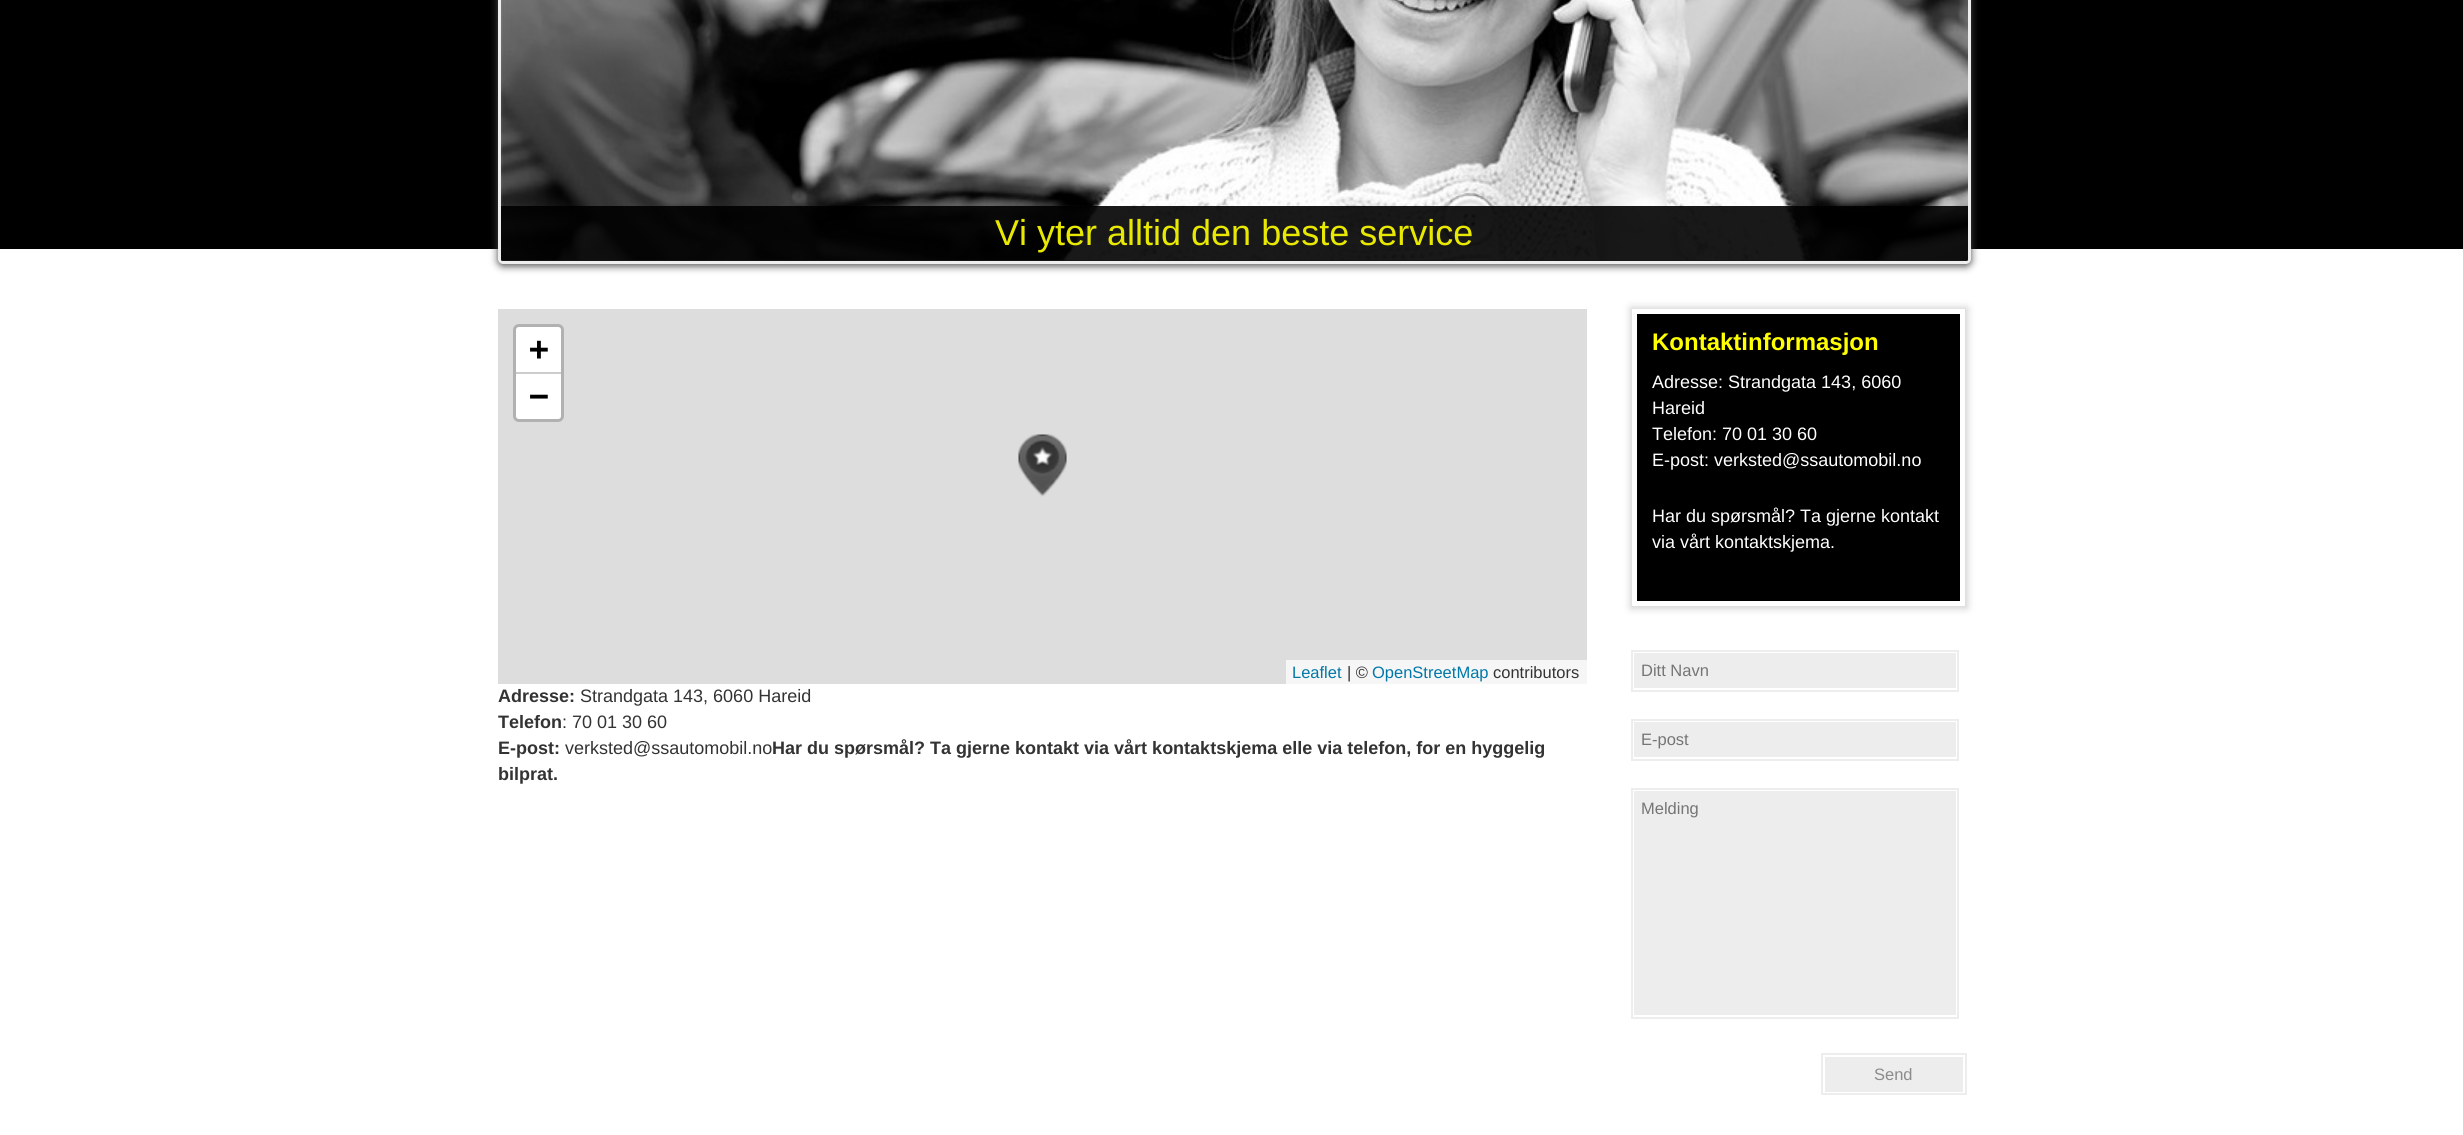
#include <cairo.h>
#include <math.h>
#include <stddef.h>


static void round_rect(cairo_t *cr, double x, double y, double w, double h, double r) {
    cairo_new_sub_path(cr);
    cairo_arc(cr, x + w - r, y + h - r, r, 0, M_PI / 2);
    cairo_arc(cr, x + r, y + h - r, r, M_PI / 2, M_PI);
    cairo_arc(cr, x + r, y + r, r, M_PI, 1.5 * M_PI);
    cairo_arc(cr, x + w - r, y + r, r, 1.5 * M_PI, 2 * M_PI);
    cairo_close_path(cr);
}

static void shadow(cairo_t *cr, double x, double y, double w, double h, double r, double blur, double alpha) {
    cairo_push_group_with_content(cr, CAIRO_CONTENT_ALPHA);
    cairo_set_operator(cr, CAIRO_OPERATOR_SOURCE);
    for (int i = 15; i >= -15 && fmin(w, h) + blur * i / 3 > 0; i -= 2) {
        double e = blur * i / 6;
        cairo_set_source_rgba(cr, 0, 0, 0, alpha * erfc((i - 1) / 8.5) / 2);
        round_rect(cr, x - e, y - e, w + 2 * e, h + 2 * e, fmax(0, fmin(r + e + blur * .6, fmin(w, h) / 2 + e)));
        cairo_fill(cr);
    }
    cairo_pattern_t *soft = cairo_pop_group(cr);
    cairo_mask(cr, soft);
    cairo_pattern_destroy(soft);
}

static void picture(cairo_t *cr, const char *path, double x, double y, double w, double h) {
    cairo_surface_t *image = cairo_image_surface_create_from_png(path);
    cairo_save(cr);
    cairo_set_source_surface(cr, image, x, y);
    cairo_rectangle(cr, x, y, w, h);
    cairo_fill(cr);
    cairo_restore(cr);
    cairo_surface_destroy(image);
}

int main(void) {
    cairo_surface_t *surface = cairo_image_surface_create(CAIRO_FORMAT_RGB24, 2463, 1135);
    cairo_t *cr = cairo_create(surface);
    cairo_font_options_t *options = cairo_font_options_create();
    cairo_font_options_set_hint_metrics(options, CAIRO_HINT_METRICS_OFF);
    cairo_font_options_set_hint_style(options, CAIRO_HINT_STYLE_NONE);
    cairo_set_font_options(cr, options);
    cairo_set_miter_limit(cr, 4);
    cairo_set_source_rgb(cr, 0, 0, 0);
    cairo_paint(cr);
    cairo_set_source_rgb(cr, 1, 1, 1);
    cairo_rectangle(cr, 0, 249, 2463, 886);
    cairo_fill(cr);
    cairo_set_source_rgb(cr, 0.29, 0.29, 0.29);
    shadow(cr, 498, -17, 1473, 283, 5, 4, 1);
    cairo_set_source_rgb(cr, 1, 1, 1);
    round_rect(cr, 499.5, -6.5, 1470, 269, 3.5);
    cairo_fill_preserve(cr);
    cairo_set_source_rgb(cr, 0.933, 0.933, 0.933);
    cairo_set_line_width(cr, 3);
    cairo_stroke(cr);
    picture(cr, "img1.png", 501, 0, 1467, 261);
    cairo_set_source_rgba(cr, 0, 0, 0, 0.9);
    cairo_new_path(cr);
    cairo_move_to(cr, 501, 206);
    cairo_line_to(cr, 1968, 206);
    cairo_line_to(cr, 1968, 259.5);
    cairo_curve_to(cr, 1968, 260.5, 1967.5, 261, 1966.5, 261);
    cairo_line_to(cr, 502.5, 261);
    cairo_curve_to(cr, 501.5, 261, 501, 260.5, 501, 259.5);
    cairo_close_path(cr);
    cairo_fill(cr);
    cairo_select_font_face(cr, "Liberation Sans", CAIRO_FONT_SLANT_NORMAL, CAIRO_FONT_WEIGHT_NORMAL);
    cairo_set_font_size(cr, 36);
    cairo_set_source_rgb(cr, 0.91, 0.91, 0.008);
    cairo_move_to(cr, 995, 245);
    cairo_show_text(cr, "Vi yter alltid den beste service");
    cairo_set_source_rgb(cr, 0.867, 0.867, 0.867);
    cairo_rectangle(cr, 498, 309, 1089, 375);
    cairo_fill(cr);
    round_rect(cr, 514.5, 325.5, 48, 95, 4.5);
    cairo_set_source_rgb(cr, 0.694, 0.694, 0.694);
    cairo_stroke(cr);
    cairo_set_source_rgb(cr, 1, 1, 1);
    cairo_new_path(cr);
    cairo_move_to(cr, 519, 327);
    cairo_line_to(cr, 558, 327);
    cairo_curve_to(cr, 559.5, 327, 561, 328.5, 561, 330);
    cairo_line_to(cr, 561, 374);
    cairo_line_to(cr, 516, 374);
    cairo_line_to(cr, 516, 330);
    cairo_curve_to(cr, 516, 328.5, 517.5, 327, 519, 327);
    cairo_close_path(cr);
    cairo_fill(cr);
    cairo_set_source_rgb(cr, 0.8, 0.8, 0.8);
    cairo_rectangle(cr, 516, 372, 45, 2);
    cairo_fill(cr);
    cairo_select_font_face(cr, "DejaVu Sans Mono", CAIRO_FONT_SLANT_NORMAL, CAIRO_FONT_WEIGHT_BOLD);
    cairo_set_font_size(cr, 33);
    cairo_set_source_rgb(cr, 0, 0, 0);
    cairo_move_to(cr, 529, 360);
    cairo_show_text(cr, "+");
    cairo_set_source_rgb(cr, 1, 1, 1);
    cairo_new_path(cr);
    cairo_move_to(cr, 516, 374);
    cairo_line_to(cr, 561, 374);
    cairo_line_to(cr, 561, 416);
    cairo_curve_to(cr, 561, 417.5, 559.5, 419, 558, 419);
    cairo_line_to(cr, 519, 419);
    cairo_curve_to(cr, 517.5, 419, 516, 417.5, 516, 416);
    cairo_close_path(cr);
    cairo_fill(cr);
    cairo_set_source_rgb(cr, 0, 0, 0);
    cairo_move_to(cr, 529, 407);
    cairo_show_text(cr, "−");
    cairo_set_source_rgb(cr, 0.961, 0.961, 0.961);
    cairo_rectangle(cr, 1286, 660, 301, 24);
    cairo_fill(cr);
    cairo_select_font_face(cr, "Liberation Sans", CAIRO_FONT_SLANT_NORMAL, CAIRO_FONT_WEIGHT_NORMAL);
    cairo_set_font_size(cr, 16.5);
    cairo_set_source_rgb(cr, 0, 0.471, 0.659);
    cairo_move_to(cr, 1292, 678);
    cairo_show_text(cr, "Leaflet");
    cairo_set_source_rgb(cr, 0.2, 0.2, 0.2);
    cairo_move_to(cr, 1347, 678);
    cairo_show_text(cr, "| ©");
    cairo_set_source_rgb(cr, 0, 0.471, 0.659);
    cairo_move_to(cr, 1372, 678);
    cairo_show_text(cr, "OpenStreetMap");
    cairo_set_source_rgb(cr, 0.2, 0.2, 0.2);
    cairo_move_to(cr, 1493, 678);
    cairo_show_text(cr, "contributors");
    picture(cr, "img2.png", 1018, 434, 49, 63);
    cairo_select_font_face(cr, "Liberation Sans", CAIRO_FONT_SLANT_NORMAL, CAIRO_FONT_WEIGHT_BOLD);
    cairo_set_font_size(cr, 18);
    cairo_move_to(cr, 498, 702);
    cairo_show_text(cr, "Adresse:");
    cairo_select_font_face(cr, "Liberation Sans", CAIRO_FONT_SLANT_NORMAL, CAIRO_FONT_WEIGHT_NORMAL);
    cairo_move_to(cr, 580, 702);
    cairo_show_text(cr, "Strandgata 143, 6060 Hareid");
    cairo_select_font_face(cr, "Liberation Sans", CAIRO_FONT_SLANT_NORMAL, CAIRO_FONT_WEIGHT_BOLD);
    cairo_move_to(cr, 498, 728);
    cairo_show_text(cr, "Telefon");
    cairo_select_font_face(cr, "Liberation Sans", CAIRO_FONT_SLANT_NORMAL, CAIRO_FONT_WEIGHT_NORMAL);
    cairo_move_to(cr, 562, 728);
    cairo_show_text(cr, ": 70 01 30 60");
    cairo_select_font_face(cr, "Liberation Sans", CAIRO_FONT_SLANT_NORMAL, CAIRO_FONT_WEIGHT_BOLD);
    cairo_move_to(cr, 498, 754);
    cairo_show_text(cr, "E-post:");
    cairo_select_font_face(cr, "Liberation Sans", CAIRO_FONT_SLANT_NORMAL, CAIRO_FONT_WEIGHT_NORMAL);
    cairo_move_to(cr, 565, 754);
    cairo_show_text(cr, "verksted@ssautomobil.no");
    cairo_select_font_face(cr, "Liberation Sans", CAIRO_FONT_SLANT_NORMAL, CAIRO_FONT_WEIGHT_BOLD);
    cairo_move_to(cr, 772, 754);
    cairo_show_text(cr, "Har du spørsmål? Ta gjerne kontakt via vårt kontaktskjema elle via telefon, for en hyggelig");
    cairo_move_to(cr, 498, 780);
    cairo_show_text(cr, "bilprat.");
    cairo_set_source_rgb(cr, 0.8, 0.8, 0.8);
    shadow(cr, 1631, 308, 336, 300, 0, 4, 1);
    cairo_set_source_rgb(cr, 0, 0, 0);
    cairo_rectangle(cr, 1634.5, 311.5, 328, 292);
    cairo_fill_preserve(cr);
    cairo_set_source_rgb(cr, 1, 1, 1);
    cairo_set_line_width(cr, 5);
    cairo_stroke(cr);
    cairo_set_font_size(cr, 24);
    cairo_set_source_rgb(cr, 1, 1, 0);
    cairo_move_to(cr, 1652, 350);
    cairo_show_text(cr, "Kontaktinformasjon");
    cairo_select_font_face(cr, "Liberation Sans", CAIRO_FONT_SLANT_NORMAL, CAIRO_FONT_WEIGHT_NORMAL);
    cairo_set_font_size(cr, 18);
    cairo_set_source_rgb(cr, 1, 1, 1);
    cairo_move_to(cr, 1652, 388);
    cairo_show_text(cr, "Adresse: Strandgata 143, 6060");
    cairo_move_to(cr, 1652, 414);
    cairo_show_text(cr, "Hareid");
    cairo_move_to(cr, 1652, 440);
    cairo_show_text(cr, "Telefon: 70 01 30 60");
    cairo_move_to(cr, 1652, 466);
    cairo_show_text(cr, "E-post: verksted@ssautomobil.no");
    cairo_move_to(cr, 1652, 522);
    cairo_show_text(cr, "Har du spørsmål? Ta gjerne kontakt");
    cairo_move_to(cr, 1652, 548);
    cairo_show_text(cr, "via vårt kontaktskjema.");
    cairo_set_source_rgb(cr, 0.929, 0.929, 0.929);
    cairo_rectangle(cr, 1634, 653, 322, 35);
    cairo_fill(cr);
    cairo_rectangle(cr, 1632, 651, 326, 40);
    cairo_set_line_width(cr, 2);
    cairo_stroke(cr);
    cairo_set_font_size(cr, 16.5);
    cairo_set_source_rgb(cr, 0.459, 0.459, 0.459);
    cairo_move_to(cr, 1641, 676);
    cairo_show_text(cr, "Ditt Navn");
    cairo_set_source_rgb(cr, 0.929, 0.929, 0.929);
    cairo_rectangle(cr, 1634, 722, 322, 35);
    cairo_fill(cr);
    cairo_rectangle(cr, 1632, 720, 326, 40);
    cairo_stroke(cr);
    cairo_set_source_rgb(cr, 0.459, 0.459, 0.459);
    cairo_move_to(cr, 1641, 745);
    cairo_show_text(cr, "E-post");
    cairo_set_source_rgb(cr, 0.929, 0.929, 0.929);
    cairo_rectangle(cr, 1634, 791, 322, 224);
    cairo_fill(cr);
    cairo_rectangle(cr, 1632, 789, 326, 229);
    cairo_stroke(cr);
    cairo_set_source_rgb(cr, 0.459, 0.459, 0.459);
    cairo_move_to(cr, 1641, 814);
    cairo_show_text(cr, "Melding");
    cairo_set_source_rgb(cr, 0.929, 0.929, 0.929);
    cairo_rectangle(cr, 1825, 1057, 138, 35);
    cairo_fill(cr);
    cairo_rectangle(cr, 1822, 1054, 144, 40);
    cairo_stroke(cr);
    cairo_set_source_rgb(cr, 0.545, 0.545, 0.545);
    cairo_move_to(cr, 1874, 1080);
    cairo_show_text(cr, "Send");
    cairo_surface_write_to_png(surface, "page.png");
    cairo_font_options_destroy(options);
    cairo_destroy(cr);
    cairo_surface_destroy(surface);
    return 0;
}
